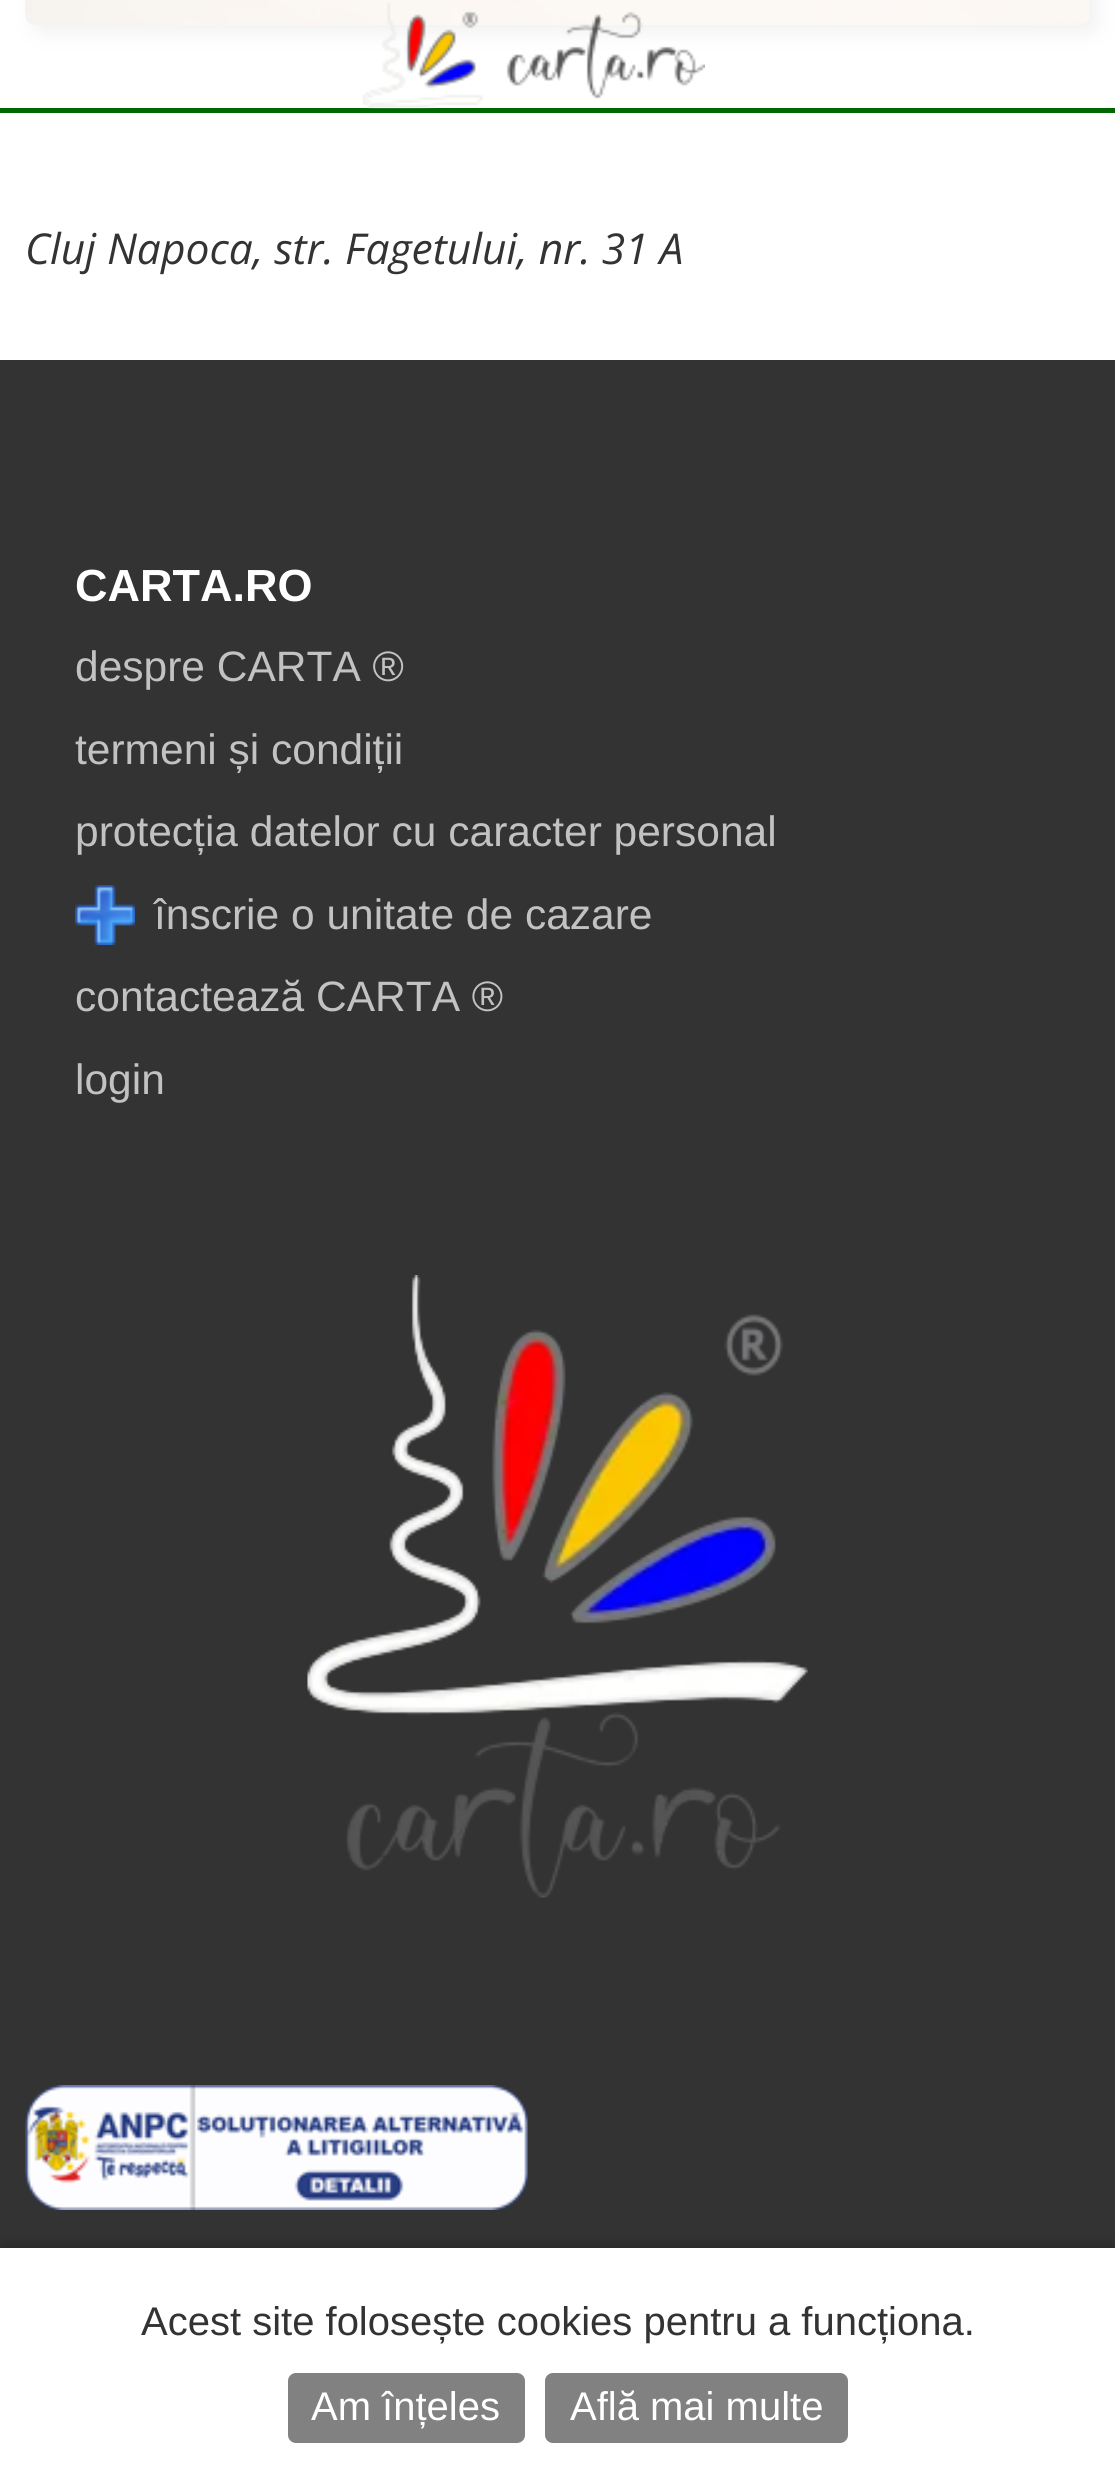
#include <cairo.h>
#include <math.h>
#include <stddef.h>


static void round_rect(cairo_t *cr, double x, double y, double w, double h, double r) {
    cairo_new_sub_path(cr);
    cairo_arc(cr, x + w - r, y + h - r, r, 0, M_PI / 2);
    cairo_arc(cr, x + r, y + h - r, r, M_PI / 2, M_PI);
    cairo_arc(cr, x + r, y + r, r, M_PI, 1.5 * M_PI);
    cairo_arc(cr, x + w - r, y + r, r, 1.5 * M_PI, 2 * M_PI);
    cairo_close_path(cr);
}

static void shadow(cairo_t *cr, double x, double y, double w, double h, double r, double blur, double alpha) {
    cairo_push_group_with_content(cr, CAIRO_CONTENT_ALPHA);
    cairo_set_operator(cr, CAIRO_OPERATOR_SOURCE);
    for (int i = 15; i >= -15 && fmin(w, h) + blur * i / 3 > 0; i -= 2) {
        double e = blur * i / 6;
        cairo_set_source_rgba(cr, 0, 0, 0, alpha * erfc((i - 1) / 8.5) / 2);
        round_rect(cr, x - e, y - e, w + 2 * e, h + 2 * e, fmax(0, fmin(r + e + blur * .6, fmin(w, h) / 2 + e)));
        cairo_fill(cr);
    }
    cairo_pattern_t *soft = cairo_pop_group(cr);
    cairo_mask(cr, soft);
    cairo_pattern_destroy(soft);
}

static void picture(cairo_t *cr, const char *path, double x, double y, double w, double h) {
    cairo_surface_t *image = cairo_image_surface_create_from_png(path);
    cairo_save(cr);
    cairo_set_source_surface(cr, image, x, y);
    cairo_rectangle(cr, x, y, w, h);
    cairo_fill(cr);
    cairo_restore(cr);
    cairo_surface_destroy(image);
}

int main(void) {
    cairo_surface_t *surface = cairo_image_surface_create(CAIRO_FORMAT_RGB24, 1115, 2467);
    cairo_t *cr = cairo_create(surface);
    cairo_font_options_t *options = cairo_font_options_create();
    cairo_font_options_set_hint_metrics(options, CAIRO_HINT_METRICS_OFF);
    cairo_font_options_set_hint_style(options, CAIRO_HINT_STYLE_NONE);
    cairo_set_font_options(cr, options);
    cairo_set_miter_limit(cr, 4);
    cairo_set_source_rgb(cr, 1, 1, 1);
    cairo_paint(cr);
    cairo_set_source_rgb(cr, 0, 0.4, 0);
    cairo_rectangle(cr, 0, 108, 1115, 5);
    cairo_fill(cr);
    cairo_set_source_rgb(cr, 0.949, 0.949, 0.949);
    shadow(cr, 33, -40, 1065, 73, 10, 10, 1);
    picture(cr, "img2.png", 25, 0, 1065, 25);
    picture(cr, "img1.png", 362, 2, 343, 107);
    cairo_select_font_face(cr, "Open Sans", CAIRO_FONT_SLANT_ITALIC, CAIRO_FONT_WEIGHT_NORMAL);
    cairo_set_font_size(cr, 42.5);
    cairo_set_source_rgb(cr, 0.2, 0.2, 0.2);
    cairo_move_to(cr, 25, 264);
    cairo_show_text(cr, "Cluj Napoca, str. Fagetului, nr. 31 A");
    cairo_rectangle(cr, 0, 360, 1115, 1888);
    cairo_fill(cr);
    cairo_select_font_face(cr, "Liberation Sans", CAIRO_FONT_SLANT_NORMAL, CAIRO_FONT_WEIGHT_BOLD);
    cairo_set_font_size(cr, 45);
    cairo_set_source_rgb(cr, 1, 1, 1);
    cairo_move_to(cr, 75, 601);
    cairo_show_text(cr, "CARTA.RO");
    cairo_select_font_face(cr, "Liberation Sans", CAIRO_FONT_SLANT_NORMAL, CAIRO_FONT_WEIGHT_NORMAL);
    cairo_set_font_size(cr, 42.5);
    cairo_set_source_rgb(cr, 0.761, 0.761, 0.761);
    cairo_move_to(cr, 75, 681);
    cairo_show_text(cr, "despre CARTA ®");
    cairo_move_to(cr, 75, 764);
    cairo_show_text(cr, "termeni și condiții");
    cairo_move_to(cr, 75, 846);
    cairo_show_text(cr, "protecția datelor cu caracter personal");
    picture(cr, "img3.png", 75, 885, 60, 60);
    cairo_move_to(cr, 154, 929);
    cairo_show_text(cr, "înscrie o unitate de cazare");
    cairo_move_to(cr, 75, 1011);
    cairo_show_text(cr, "contactează CARTA ®");
    cairo_move_to(cr, 75, 1094);
    cairo_show_text(cr, "login");
    picture(cr, "img4.png", 307, 1275, 501, 623);
    picture(cr, "img5.png", 25, 2085, 503, 125);
    cairo_set_source_rgb(cr, 0, 0, 0);
    shadow(cr, 0, 2243, 1115, 220, 0, 6, 0.2);
    cairo_set_source_rgb(cr, 1, 1, 1);
    cairo_rectangle(cr, 0, 2248, 1115, 219);
    cairo_fill(cr);
    cairo_set_font_size(cr, 40);
    cairo_set_source_rgb(cr, 0.2, 0.2, 0.2);
    cairo_move_to(cr, 141, 2335);
    cairo_show_text(cr, "Acest site folosește cookies pentru a funcționa.");
    cairo_set_source_rgb(cr, 0.506, 0.506, 0.506);
    round_rect(cr, 288, 2373, 237, 70, 8);
    cairo_fill(cr);
    cairo_set_source_rgb(cr, 1, 1, 1);
    cairo_move_to(cr, 311, 2420);
    cairo_show_text(cr, "Am înțeles");
    cairo_set_source_rgb(cr, 0.506, 0.506, 0.506);
    round_rect(cr, 545, 2373, 303, 70, 8);
    cairo_fill(cr);
    cairo_set_source_rgb(cr, 1, 1, 1);
    cairo_move_to(cr, 570, 2420);
    cairo_show_text(cr, "Află mai multe");
    cairo_surface_write_to_png(surface, "page.png");
    cairo_font_options_destroy(options);
    cairo_destroy(cr);
    cairo_surface_destroy(surface);
    return 0;
}
